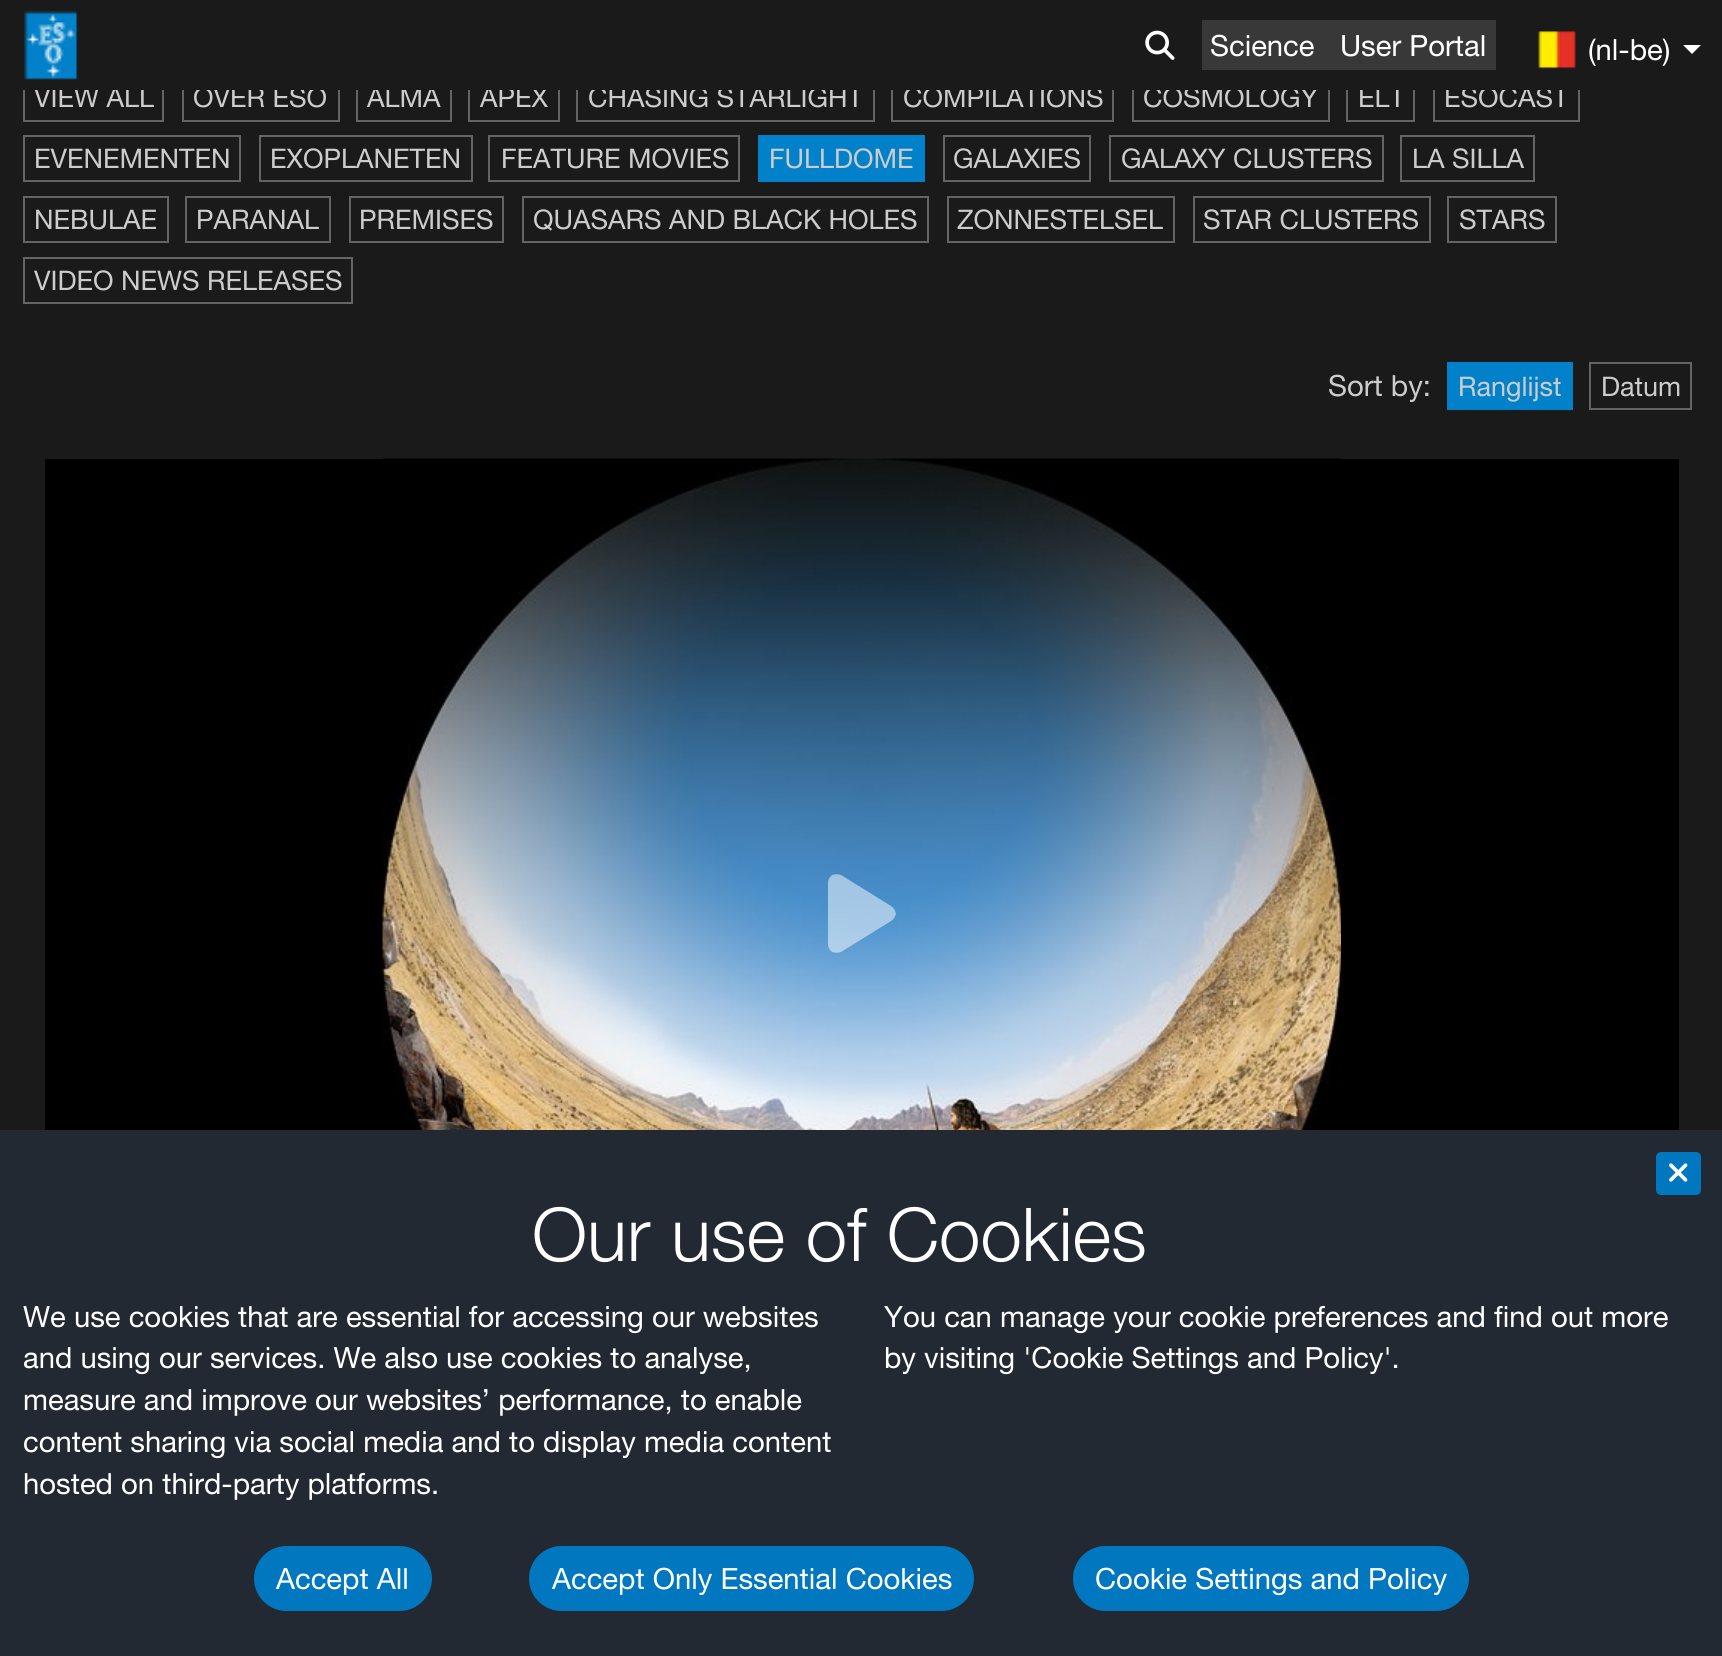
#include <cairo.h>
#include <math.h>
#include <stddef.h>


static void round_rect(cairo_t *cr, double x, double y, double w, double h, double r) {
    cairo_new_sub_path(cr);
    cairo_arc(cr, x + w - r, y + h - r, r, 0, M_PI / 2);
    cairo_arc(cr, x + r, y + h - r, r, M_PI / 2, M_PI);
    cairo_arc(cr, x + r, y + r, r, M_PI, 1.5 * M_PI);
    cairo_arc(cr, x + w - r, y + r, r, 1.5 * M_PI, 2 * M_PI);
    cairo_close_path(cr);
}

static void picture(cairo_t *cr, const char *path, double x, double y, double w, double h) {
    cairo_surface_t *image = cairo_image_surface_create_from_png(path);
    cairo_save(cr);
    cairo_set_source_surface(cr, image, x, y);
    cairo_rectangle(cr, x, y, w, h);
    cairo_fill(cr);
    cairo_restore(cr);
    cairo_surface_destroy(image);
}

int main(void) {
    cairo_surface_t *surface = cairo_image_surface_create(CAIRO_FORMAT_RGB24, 1722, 1656);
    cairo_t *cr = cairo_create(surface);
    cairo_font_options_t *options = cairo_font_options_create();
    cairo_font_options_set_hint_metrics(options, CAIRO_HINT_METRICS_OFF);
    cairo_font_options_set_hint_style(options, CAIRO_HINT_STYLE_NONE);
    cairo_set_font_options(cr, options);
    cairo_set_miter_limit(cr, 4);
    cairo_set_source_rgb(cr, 0.102, 0.102, 0.102);
    cairo_paint(cr);
    cairo_rectangle(cr, 24, 75, 139, 46);
    cairo_set_source_rgb(cr, 0.392, 0.392, 0.392);
    cairo_stroke(cr);
    cairo_select_font_face(cr, "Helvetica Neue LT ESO", CAIRO_FONT_SLANT_NORMAL, CAIRO_FONT_WEIGHT_NORMAL);
    cairo_set_font_size(cr, 27);
    cairo_set_source_rgb(cr, 0.8, 0.8, 0.8);
    cairo_move_to(cr, 34, 107);
    cairo_show_text(cr, "VIEW ALL");
    cairo_rectangle(cr, 183, 75, 156, 46);
    cairo_set_source_rgb(cr, 0.392, 0.392, 0.392);
    cairo_stroke(cr);
    cairo_set_source_rgb(cr, 0.8, 0.8, 0.8);
    cairo_move_to(cr, 193, 107);
    cairo_show_text(cr, "OVER ESO");
    cairo_rectangle(cr, 357, 75, 94, 46);
    cairo_set_source_rgb(cr, 0.392, 0.392, 0.392);
    cairo_stroke(cr);
    cairo_set_source_rgb(cr, 0.8, 0.8, 0.8);
    cairo_move_to(cr, 367, 107);
    cairo_show_text(cr, "ALMA");
    cairo_rectangle(cr, 469, 75, 90, 46);
    cairo_set_source_rgb(cr, 0.392, 0.392, 0.392);
    cairo_stroke(cr);
    cairo_set_source_rgb(cr, 0.8, 0.8, 0.8);
    cairo_move_to(cr, 480, 107);
    cairo_show_text(cr, "APEX");
    cairo_rectangle(cr, 577, 75, 297, 46);
    cairo_set_source_rgb(cr, 0.392, 0.392, 0.392);
    cairo_stroke(cr);
    cairo_set_source_rgb(cr, 0.8, 0.8, 0.8);
    cairo_move_to(cr, 588, 107);
    cairo_show_text(cr, "CHASING STARLIGHT");
    cairo_rectangle(cr, 892, 75, 221, 46);
    cairo_set_source_rgb(cr, 0.392, 0.392, 0.392);
    cairo_stroke(cr);
    cairo_set_source_rgb(cr, 0.8, 0.8, 0.8);
    cairo_move_to(cr, 903, 107);
    cairo_show_text(cr, "COMPILATIONS");
    cairo_rectangle(cr, 1133, 75, 196, 46);
    cairo_set_source_rgb(cr, 0.392, 0.392, 0.392);
    cairo_stroke(cr);
    cairo_set_source_rgb(cr, 0.8, 0.8, 0.8);
    cairo_move_to(cr, 1143, 107);
    cairo_show_text(cr, "COSMOLOGY");
    cairo_rectangle(cr, 1347, 75, 67, 46);
    cairo_set_source_rgb(cr, 0.392, 0.392, 0.392);
    cairo_stroke(cr);
    cairo_set_source_rgb(cr, 0.8, 0.8, 0.8);
    cairo_move_to(cr, 1358, 107);
    cairo_show_text(cr, "ELT");
    cairo_rectangle(cr, 1434, 75, 145, 46);
    cairo_set_source_rgb(cr, 0.392, 0.392, 0.392);
    cairo_stroke(cr);
    cairo_set_source_rgb(cr, 0.8, 0.8, 0.8);
    cairo_move_to(cr, 1444, 107);
    cairo_show_text(cr, "ESOCAST");
    cairo_set_source_rgb(cr, 0.102, 0.102, 0.102);
    cairo_rectangle(cr, 23, 74, 1557, 16);
    cairo_fill(cr);
    picture(cr, "img1.png", 24, 10, 54, 70);
    picture(cr, "img2.png", 1145, 30, 30, 30);
    cairo_set_source_rgb(cr, 0.22, 0.22, 0.22);
    cairo_rectangle(cr, 1202, 20, 294, 50);
    cairo_fill(cr);
    cairo_set_font_size(cr, 29.25);
    cairo_set_source_rgb(cr, 1, 1, 1);
    cairo_move_to(cr, 1210, 56);
    cairo_show_text(cr, "Science");
    cairo_move_to(cr, 1340, 56);
    cairo_show_text(cr, "User Portal");
    picture(cr, "img3.png", 1538, 31, 38, 38);
    cairo_move_to(cr, 1588, 60);
    cairo_show_text(cr, "(nl-be)");
    cairo_new_path(cr);
    cairo_move_to(cr, 1683, 45);
    cairo_line_to(cr, 1701, 45);
    cairo_line_to(cr, 1692, 54);
    cairo_close_path(cr);
    cairo_fill(cr);
    cairo_rectangle(cr, 24, 136, 216, 45);
    cairo_set_source_rgb(cr, 0.392, 0.392, 0.392);
    cairo_stroke(cr);
    cairo_set_font_size(cr, 27);
    cairo_set_source_rgb(cr, 0.8, 0.8, 0.8);
    cairo_move_to(cr, 34, 168);
    cairo_show_text(cr, "EVENEMENTEN");
    cairo_rectangle(cr, 260, 136, 212, 45);
    cairo_set_source_rgb(cr, 0.392, 0.392, 0.392);
    cairo_stroke(cr);
    cairo_set_source_rgb(cr, 0.8, 0.8, 0.8);
    cairo_move_to(cr, 270, 168);
    cairo_show_text(cr, "EXOPLANETEN");
    cairo_rectangle(cr, 489, 136, 250, 45);
    cairo_set_source_rgb(cr, 0.392, 0.392, 0.392);
    cairo_stroke(cr);
    cairo_set_source_rgb(cr, 0.8, 0.8, 0.8);
    cairo_move_to(cr, 501, 168);
    cairo_show_text(cr, "FEATURE MOVIES");
    cairo_set_source_rgb(cr, 0, 0.506, 0.788);
    cairo_rectangle(cr, 758, 135, 167, 47);
    cairo_fill(cr);
    cairo_set_source_rgb(cr, 0.8, 0.8, 0.8);
    cairo_move_to(cr, 769, 168);
    cairo_show_text(cr, "FULLDOME");
    cairo_rectangle(cr, 944, 136, 146, 45);
    cairo_set_source_rgb(cr, 0.392, 0.392, 0.392);
    cairo_stroke(cr);
    cairo_set_source_rgb(cr, 0.8, 0.8, 0.8);
    cairo_move_to(cr, 953, 168);
    cairo_show_text(cr, "GALAXIES");
    cairo_rectangle(cr, 1110, 136, 273, 45);
    cairo_set_source_rgb(cr, 0.392, 0.392, 0.392);
    cairo_stroke(cr);
    cairo_set_source_rgb(cr, 0.8, 0.8, 0.8);
    cairo_move_to(cr, 1121, 168);
    cairo_show_text(cr, "GALAXY CLUSTERS");
    cairo_rectangle(cr, 1401, 136, 133, 45);
    cairo_set_source_rgb(cr, 0.392, 0.392, 0.392);
    cairo_stroke(cr);
    cairo_set_source_rgb(cr, 0.8, 0.8, 0.8);
    cairo_move_to(cr, 1412, 168);
    cairo_show_text(cr, "LA SILLA");
    cairo_rectangle(cr, 24, 197, 144, 45);
    cairo_set_source_rgb(cr, 0.392, 0.392, 0.392);
    cairo_stroke(cr);
    cairo_set_source_rgb(cr, 0.8, 0.8, 0.8);
    cairo_move_to(cr, 34, 229);
    cairo_show_text(cr, "NEBULAE");
    cairo_rectangle(cr, 186, 197, 144, 45);
    cairo_set_source_rgb(cr, 0.392, 0.392, 0.392);
    cairo_stroke(cr);
    cairo_set_source_rgb(cr, 0.8, 0.8, 0.8);
    cairo_move_to(cr, 196, 229);
    cairo_show_text(cr, "PARANAL");
    cairo_rectangle(cr, 350, 197, 153, 45);
    cairo_set_source_rgb(cr, 0.392, 0.392, 0.392);
    cairo_stroke(cr);
    cairo_set_source_rgb(cr, 0.8, 0.8, 0.8);
    cairo_move_to(cr, 359, 229);
    cairo_show_text(cr, "PREMISES");
    cairo_rectangle(cr, 523, 197, 405, 45);
    cairo_set_source_rgb(cr, 0.392, 0.392, 0.392);
    cairo_stroke(cr);
    cairo_set_source_rgb(cr, 0.8, 0.8, 0.8);
    cairo_move_to(cr, 533, 229);
    cairo_show_text(cr, "QUASARS AND BLACK HOLES");
    cairo_rectangle(cr, 948, 197, 226, 45);
    cairo_set_source_rgb(cr, 0.392, 0.392, 0.392);
    cairo_stroke(cr);
    cairo_set_source_rgb(cr, 0.8, 0.8, 0.8);
    cairo_move_to(cr, 957, 229);
    cairo_show_text(cr, "ZONNESTELSEL");
    cairo_rectangle(cr, 1194, 197, 236, 45);
    cairo_set_source_rgb(cr, 0.392, 0.392, 0.392);
    cairo_stroke(cr);
    cairo_set_source_rgb(cr, 0.8, 0.8, 0.8);
    cairo_move_to(cr, 1203, 229);
    cairo_show_text(cr, "STAR CLUSTERS");
    cairo_rectangle(cr, 1448, 197, 108, 45);
    cairo_set_source_rgb(cr, 0.392, 0.392, 0.392);
    cairo_stroke(cr);
    cairo_set_source_rgb(cr, 0.8, 0.8, 0.8);
    cairo_move_to(cr, 1459, 229);
    cairo_show_text(cr, "STARS");
    cairo_rectangle(cr, 24, 258, 328, 45);
    cairo_set_source_rgb(cr, 0.392, 0.392, 0.392);
    cairo_stroke(cr);
    cairo_set_source_rgb(cr, 0.8, 0.8, 0.8);
    cairo_move_to(cr, 34, 290);
    cairo_show_text(cr, "VIDEO NEWS RELEASES");
    cairo_set_font_size(cr, 29.25);
    cairo_move_to(cr, 1328, 396);
    cairo_show_text(cr, "Sort by:");
    cairo_set_source_rgb(cr, 0, 0.506, 0.788);
    cairo_rectangle(cr, 1447, 362, 126, 48);
    cairo_fill(cr);
    cairo_set_font_size(cr, 27);
    cairo_set_source_rgb(cr, 0.8, 0.8, 0.8);
    cairo_move_to(cr, 1458, 396);
    cairo_show_text(cr, "Ranglijst");
    cairo_rectangle(cr, 1590, 363, 101, 46);
    cairo_set_source_rgb(cr, 0.392, 0.392, 0.392);
    cairo_stroke(cr);
    cairo_set_source_rgb(cr, 0.8, 0.8, 0.8);
    cairo_move_to(cr, 1601, 396);
    cairo_show_text(cr, "Datum");
    cairo_set_source_rgb(cr, 0, 0, 0);
    cairo_rectangle(cr, 45, 459, 1634, 671);
    cairo_fill(cr);
    picture(cr, "img4.png", 382, 458, 959, 672);
    cairo_set_source_rgba(cr, 1, 1, 1, 0.5);
    cairo_new_path(cr);
    cairo_move_to(cr, 841, 875);
    cairo_curve_to(cr, 838, 874, 835, 874, 832, 875);
    cairo_curve_to(cr, 830, 877, 828, 879, 828, 883);
    cairo_line_to(cr, 828, 944);
    cairo_curve_to(cr, 828, 948, 830, 950, 832, 952);
    cairo_curve_to(cr, 835, 953, 838, 953, 841, 952);
    cairo_line_to(cr, 891, 921);
    cairo_curve_to(cr, 894, 919, 895, 917, 896, 914);
    cairo_curve_to(cr, 895, 910, 894, 908, 891, 906);
    cairo_close_path(cr);
    cairo_fill(cr);
    cairo_set_source_rgb(cr, 0.137, 0.161, 0.196);
    cairo_rectangle(cr, 0, 1130, 1722, 526);
    cairo_fill(cr);
    cairo_set_source_rgb(cr, 0, 0.467, 0.745);
    round_rect(cr, 1656, 1152, 45, 43, 5);
    cairo_fill(cr);
    picture(cr, "img5.png", 1669, 1163, 19, 19);
    cairo_select_font_face(cr, "Helvetica Neue LT ESO Light", CAIRO_FONT_SLANT_NORMAL, CAIRO_FONT_WEIGHT_NORMAL);
    cairo_set_font_size(cr, 74.25);
    cairo_set_source_rgb(cr, 1, 1, 1);
    cairo_move_to(cr, 532, 1261);
    cairo_show_text(cr, "Our use of Cookies");
    cairo_select_font_face(cr, "Helvetica Neue LT ESO", CAIRO_FONT_SLANT_NORMAL, CAIRO_FONT_WEIGHT_NORMAL);
    cairo_set_font_size(cr, 29.25);
    cairo_move_to(cr, 23, 1327);
    cairo_show_text(cr, "We use cookies that are essential for accessing our websites");
    cairo_move_to(cr, 23, 1368);
    cairo_show_text(cr, "and using our services. We also use cookies to analyse,");
    cairo_move_to(cr, 23, 1410);
    cairo_show_text(cr, "measure and improve our websites’ performance, to enable");
    cairo_move_to(cr, 23, 1452);
    cairo_show_text(cr, "content sharing via social media and to display media content");
    cairo_move_to(cr, 23, 1494);
    cairo_show_text(cr, "hosted on third-party platforms.");
    cairo_move_to(cr, 884, 1327);
    cairo_show_text(cr, "You can manage your cookie preferences and find out more");
    cairo_move_to(cr, 884, 1368);
    cairo_show_text(cr, "by visiting 'Cookie Settings and Policy'.");
    cairo_set_source_rgb(cr, 0, 0.467, 0.745);
    round_rect(cr, 254, 1546, 178, 65, 32.5);
    cairo_fill(cr);
    cairo_set_source_rgb(cr, 1, 1, 1);
    cairo_move_to(cr, 276, 1589);
    cairo_show_text(cr, "Accept All");
    cairo_set_source_rgb(cr, 0, 0.467, 0.745);
    round_rect(cr, 529, 1546, 445, 65, 32.5);
    cairo_fill(cr);
    cairo_set_source_rgb(cr, 1, 1, 1);
    cairo_move_to(cr, 552, 1589);
    cairo_show_text(cr, "Accept Only Essential Cookies");
    cairo_set_source_rgb(cr, 0, 0.467, 0.745);
    round_rect(cr, 1073, 1546, 396, 65, 32.5);
    cairo_fill(cr);
    cairo_set_source_rgb(cr, 1, 1, 1);
    cairo_move_to(cr, 1095, 1589);
    cairo_show_text(cr, "Cookie Settings and Policy");
    cairo_surface_write_to_png(surface, "page.png");
    cairo_font_options_destroy(options);
    cairo_destroy(cr);
    cairo_surface_destroy(surface);
    return 0;
}
